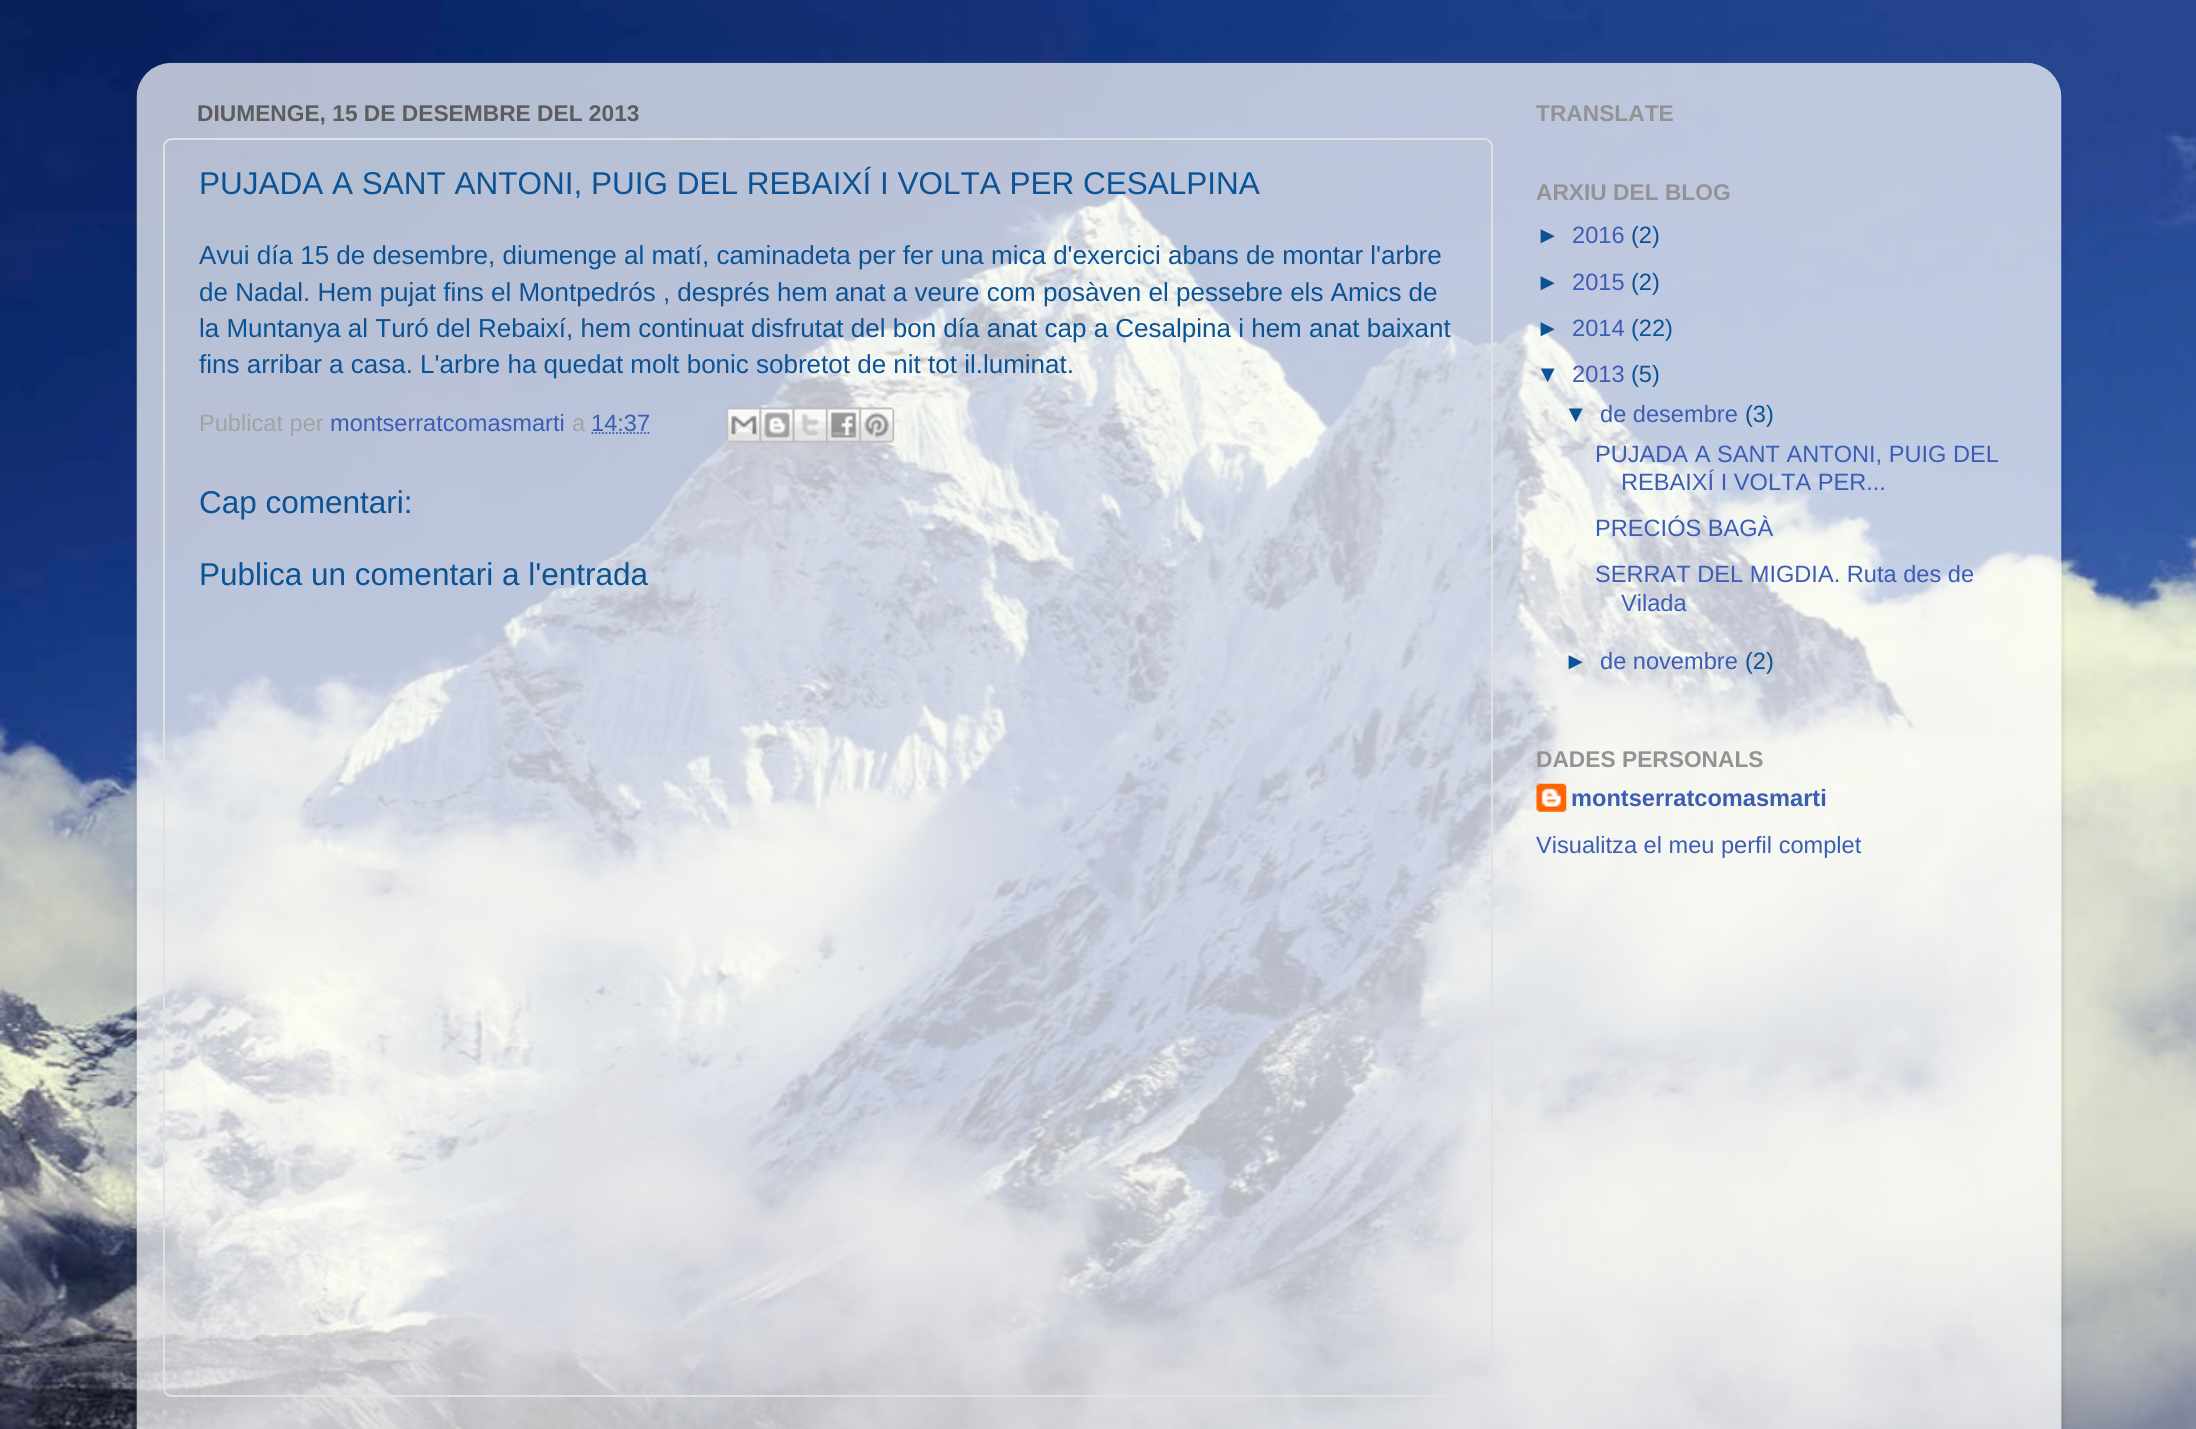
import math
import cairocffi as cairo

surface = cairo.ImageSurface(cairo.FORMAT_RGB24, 2196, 1429)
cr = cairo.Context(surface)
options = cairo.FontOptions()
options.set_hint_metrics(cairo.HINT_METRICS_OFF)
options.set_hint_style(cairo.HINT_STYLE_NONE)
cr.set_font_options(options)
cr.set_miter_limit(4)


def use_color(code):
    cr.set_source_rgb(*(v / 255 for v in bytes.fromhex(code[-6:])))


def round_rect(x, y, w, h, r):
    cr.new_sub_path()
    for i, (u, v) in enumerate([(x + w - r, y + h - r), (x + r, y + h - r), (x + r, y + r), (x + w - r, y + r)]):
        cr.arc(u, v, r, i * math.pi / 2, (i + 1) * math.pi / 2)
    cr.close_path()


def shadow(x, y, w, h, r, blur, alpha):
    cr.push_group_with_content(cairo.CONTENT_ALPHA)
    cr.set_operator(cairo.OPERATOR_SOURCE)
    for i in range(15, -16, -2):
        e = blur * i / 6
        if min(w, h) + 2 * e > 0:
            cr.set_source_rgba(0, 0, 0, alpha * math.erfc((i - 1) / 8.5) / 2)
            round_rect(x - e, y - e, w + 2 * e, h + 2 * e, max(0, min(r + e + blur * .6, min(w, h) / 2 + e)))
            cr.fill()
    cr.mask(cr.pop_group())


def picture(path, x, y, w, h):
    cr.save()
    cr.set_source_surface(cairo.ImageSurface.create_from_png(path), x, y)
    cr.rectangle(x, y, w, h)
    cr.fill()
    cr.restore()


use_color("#ffffff")
cr.paint()
picture("img1.png", 0, 0, 2196, 1429)
cr.save()
cr.set_fill_rule(cairo.FILL_RULE_EVEN_ODD)
cr.new_path()
cr.move_to(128, 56)
cr.line_to(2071, 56)
cr.line_to(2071, 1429)
cr.line_to(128, 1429)
cr.close_path()
cr.move_to(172, 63)
cr.line_to(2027, 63)
cr.curve_to(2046.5, 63, 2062, 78.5, 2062, 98)
cr.line_to(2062, 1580)
cr.line_to(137, 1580)
cr.line_to(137, 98)
cr.curve_to(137, 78.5, 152.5, 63, 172, 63)
cr.close_path()
cr.clip()
use_color("#000000")
shadow(137, 65, 1925, 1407, 35, 2.5, 0.15)
cr.restore()
picture("img2.png", 136, 62, 1926, 1367)
cr.select_font_face("Liberation Sans", cairo.FONT_SLANT_NORMAL, cairo.FONT_WEIGHT_BOLD)
cr.set_font_size(22.75)
use_color("#5d5d5d")
cr.move_to(197, 121)
cr.show_text("DIUMENGE, 15 DE DESEMBRE DEL 2013")
round_rect(164, 139, 1328, 1257, 8)
use_color("#e1e1e1")
cr.stroke()
cr.select_font_face("Liberation Sans")
cr.set_font_size(31.5)
use_color("#0b5394")
cr.move_to(199, 194)
cr.show_text("PUJADA A SANT ANTONI, PUIG DEL REBAIXÍ I VOLTA PER CESALPINA")
cr.set_font_size(26)
cr.move_to(199, 264)
cr.show_text("Avui día 15 de desembre, diumenge al matí, caminadeta per fer una mica d'exercici abans de montar l'arbre")
cr.move_to(199, 301)
cr.show_text("de Nadal. Hem pujat fins el Montpedrós , després hem anat a veure com posàven el pessebre els Amics de")
cr.move_to(199, 337)
cr.show_text("la Muntanya al Turó del Rebaixí, hem continuat disfrutat del bon día anat cap a Cesalpina i hem anat baixant")
cr.move_to(199, 373)
cr.show_text("fins arribar a casa. L'arbre ha quedat molt bonic sobretot de nit tot il.luminat.")
cr.set_font_size(23.6)
use_color("#a2a2a2")
cr.move_to(199, 431)
cr.show_text("Publicat per")
use_color("#3c5db4")
cr.move_to(330, 431)
cr.show_text("montserratcomasmarti")
use_color("#a2a2a2")
cr.move_to(572, 431)
cr.show_text("a")
use_color("#3c5db4")
cr.move_to(591, 431)
cr.show_text("14:37")
cr.new_path()
cr.move_to(591.5, 433)
cr.line_to(650.5, 433)
cr.set_line_width(1.8)
cr.set_dash([1.75, 1.75])
cr.stroke()
picture("img3.png", 726, 407, 36, 36)
picture("img4.png", 759, 407, 36, 36)
picture("img5.png", 792, 407, 36, 36)
picture("img6.png", 826, 407, 35, 36)
picture("img7.png", 859, 407, 36, 36)
cr.set_font_size(31.5)
use_color("#0b5394")
cr.move_to(199, 513)
cr.show_text("Cap comentari:")
cr.move_to(199, 585)
cr.show_text("Publica un comentari a l'entrada")
cr.select_font_face("Liberation Sans", cairo.FONT_SLANT_NORMAL, cairo.FONT_WEIGHT_BOLD)
cr.set_font_size(22.75)
use_color("#939393")
cr.move_to(1536, 121)
cr.show_text("TRANSLATE")
cr.move_to(1536, 200)
cr.show_text("ARXIU DEL BLOG")
cr.select_font_face("Liberation Sans")
cr.set_font_size(23.6)
use_color("#0b5394")
cr.move_to(1536, 243)
cr.show_text("►")
use_color("#3c5db4")
cr.move_to(1572, 243)
cr.show_text("2016")
use_color("#0b5394")
cr.move_to(1631, 243)
cr.show_text("(2)")
cr.move_to(1536, 290)
cr.show_text("►")
use_color("#3c5db4")
cr.move_to(1572, 290)
cr.show_text("2015")
use_color("#0b5394")
cr.move_to(1631, 290)
cr.show_text("(2)")
cr.move_to(1536, 336)
cr.show_text("►")
use_color("#3c5db4")
cr.move_to(1572, 336)
cr.show_text("2014")
use_color("#0b5394")
cr.move_to(1631, 336)
cr.show_text("(22)")
cr.move_to(1536, 382)
cr.show_text("▼")
use_color("#3c5db4")
cr.move_to(1572, 382)
cr.show_text("2013")
use_color("#0b5394")
cr.move_to(1631, 382)
cr.show_text("(5)")
cr.move_to(1564, 422)
cr.show_text("▼")
use_color("#3c5db4")
cr.move_to(1600, 422)
cr.show_text("de desembre")
use_color("#0b5394")
cr.move_to(1745, 422)
cr.show_text("(3)")
use_color("#3c5db4")
cr.move_to(1595, 462)
cr.show_text("PUJADA A SANT ANTONI, PUIG DEL")
cr.move_to(1621, 490)
cr.show_text("REBAIXÍ I VOLTA PER...")
cr.move_to(1595, 536)
cr.show_text("PRECIÓS BAGÀ")
cr.move_to(1595, 582)
cr.show_text("SERRAT DEL MIGDIA. Ruta des de")
cr.move_to(1621, 611)
cr.show_text("Vilada")
use_color("#0b5394")
cr.move_to(1564, 669)
cr.show_text("►")
use_color("#3c5db4")
cr.move_to(1600, 669)
cr.show_text("de novembre")
use_color("#0b5394")
cr.move_to(1745, 669)
cr.show_text("(2)")
cr.select_font_face("Liberation Sans", cairo.FONT_SLANT_NORMAL, cairo.FONT_WEIGHT_BOLD)
cr.set_font_size(22.75)
use_color("#939393")
cr.move_to(1536, 767)
cr.show_text("DADES PERSONALS")
picture("img8.png", 1536, 783, 31, 29)
cr.set_font_size(23.6)
use_color("#3c5db4")
cr.move_to(1571, 806)
cr.show_text("montserratcomasmarti")
cr.select_font_face("Liberation Sans")
cr.move_to(1536, 853)
cr.show_text("Visualitza el meu perfil complet")
surface.write_to_png("result.png")
